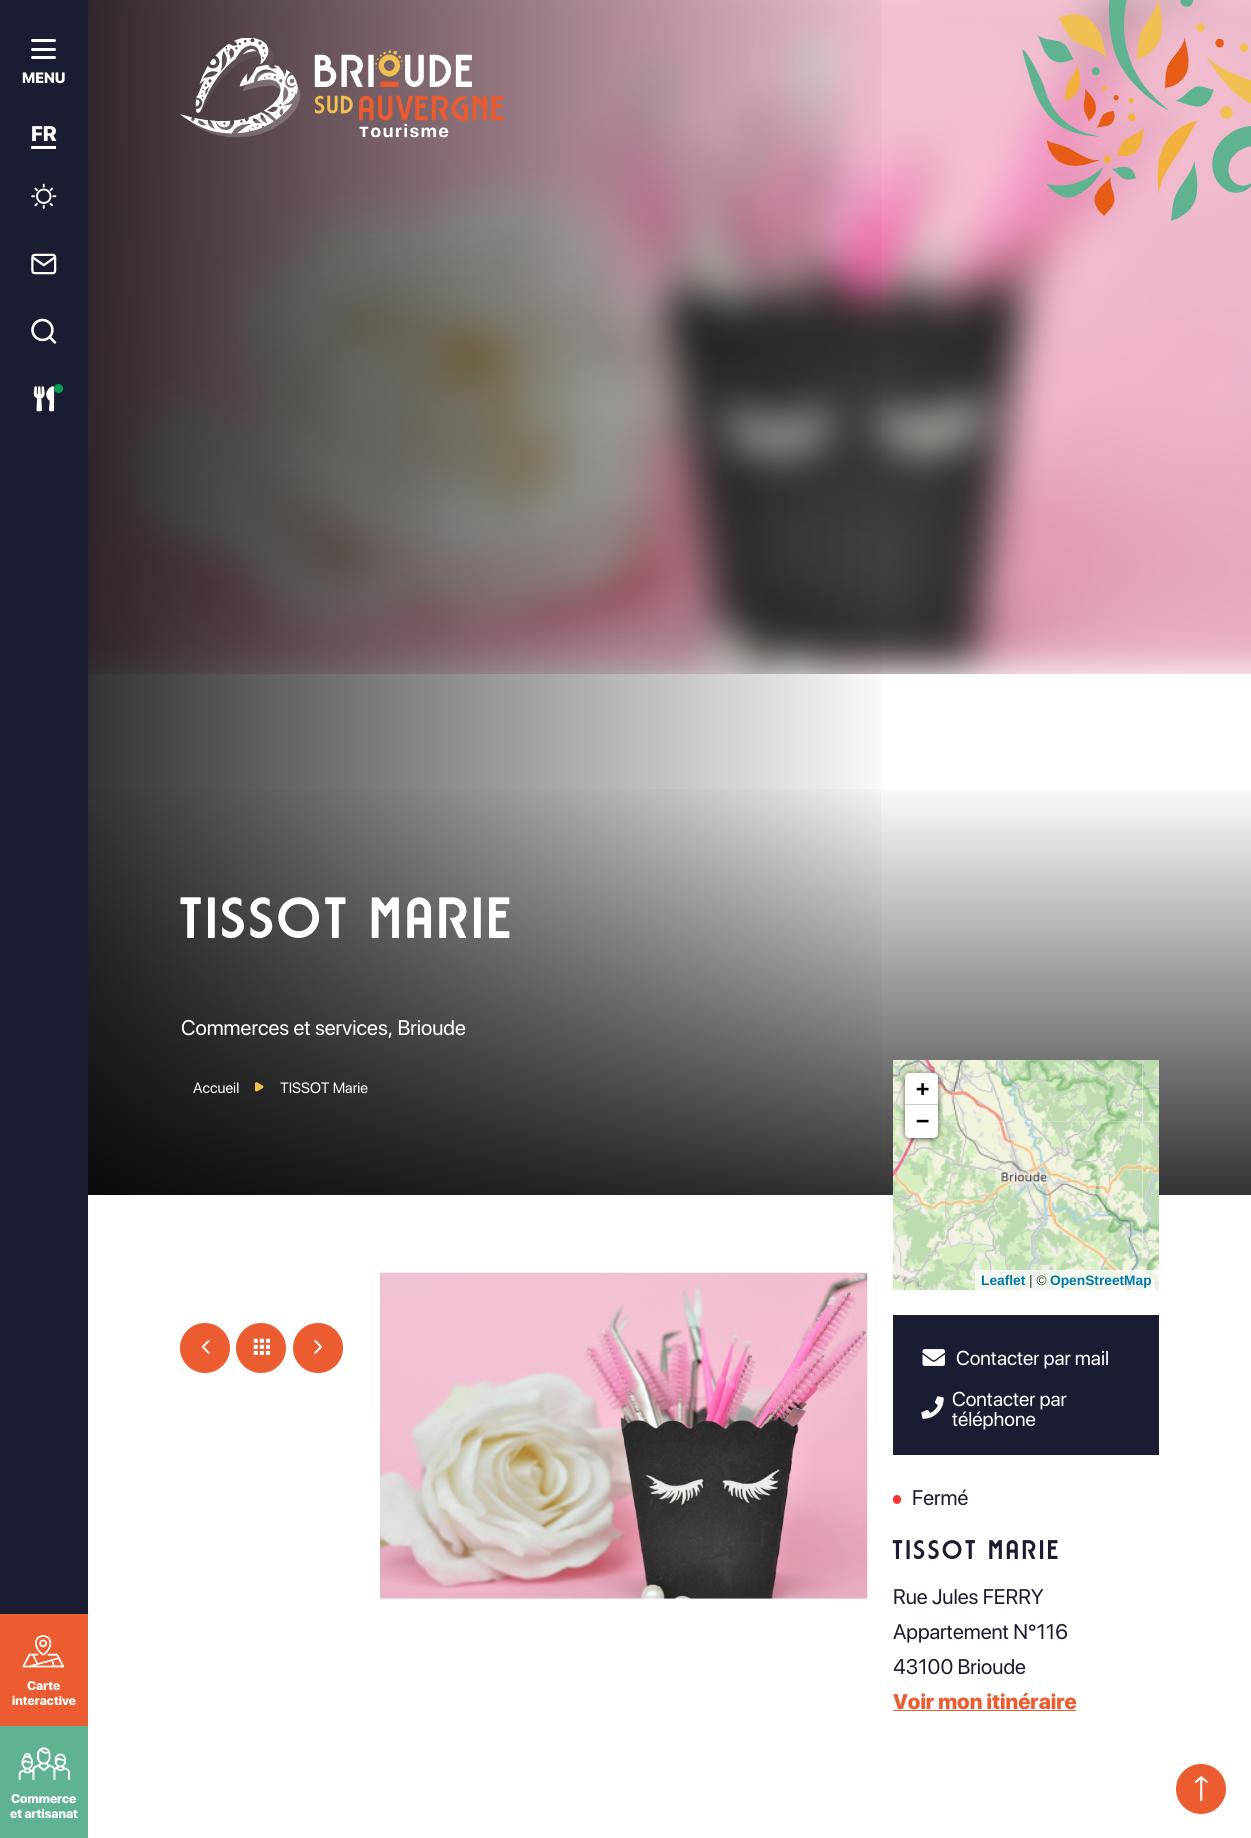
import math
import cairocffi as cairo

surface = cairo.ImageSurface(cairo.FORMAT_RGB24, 1251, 1838)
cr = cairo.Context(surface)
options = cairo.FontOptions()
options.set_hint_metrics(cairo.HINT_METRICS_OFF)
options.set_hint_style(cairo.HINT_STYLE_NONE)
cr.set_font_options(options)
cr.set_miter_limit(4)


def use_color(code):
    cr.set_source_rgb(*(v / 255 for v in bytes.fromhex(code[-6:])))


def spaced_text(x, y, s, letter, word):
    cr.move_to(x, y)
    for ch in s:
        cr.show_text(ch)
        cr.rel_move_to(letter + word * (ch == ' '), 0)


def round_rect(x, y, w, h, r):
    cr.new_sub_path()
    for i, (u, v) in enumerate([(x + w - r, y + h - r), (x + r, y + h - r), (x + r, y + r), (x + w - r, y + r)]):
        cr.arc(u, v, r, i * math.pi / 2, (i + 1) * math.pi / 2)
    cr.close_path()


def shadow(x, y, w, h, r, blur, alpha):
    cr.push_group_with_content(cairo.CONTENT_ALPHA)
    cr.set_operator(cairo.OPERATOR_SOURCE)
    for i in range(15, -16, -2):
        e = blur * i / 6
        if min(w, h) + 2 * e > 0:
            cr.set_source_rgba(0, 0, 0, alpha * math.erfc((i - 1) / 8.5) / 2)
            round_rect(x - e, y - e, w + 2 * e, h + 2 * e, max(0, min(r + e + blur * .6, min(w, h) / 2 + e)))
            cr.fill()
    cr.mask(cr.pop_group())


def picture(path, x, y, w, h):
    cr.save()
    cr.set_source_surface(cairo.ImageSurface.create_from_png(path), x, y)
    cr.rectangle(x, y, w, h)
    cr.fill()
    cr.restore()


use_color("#ffffff")
cr.paint()
use_color("#1a1d31")
cr.rectangle(0, 0, 88, 1614)
cr.fill()
use_color("#ffffff")
round_rect(31, 39, 25, 3, 1.5)
cr.fill()
round_rect(31, 48, 25, 3, 1.5)
cr.fill()
round_rect(31, 56, 25, 3, 1.5)
cr.fill()
cr.select_font_face("SF Pro Display Black")
cr.set_font_size(15)
cr.move_to(22, 83)
cr.show_text("MENU")
cr.set_font_size(21.1)
cr.move_to(31, 141)
cr.show_text("FR")
cr.rectangle(31, 146, 25, 3)
cr.fill()
picture("img1.png", 31, 183, 26, 26)
picture("img2.png", 31, 253, 26, 22)
picture("img3.png", 31, 318, 26, 26)
picture("img4.png", 33, 386, 22, 26)
use_color("#009e55")
cr.arc(58.5, 388.5, 4.5, 0, 2 * math.pi)
cr.fill()
use_color("#eb5c30")
cr.rectangle(0, 1614, 88, 112)
cr.fill()
picture("img5.png", 22, 1635, 42, 33)
cr.set_font_size(12.5)
use_color("#ffffff")
cr.move_to(27, 1690)
cr.show_text("Carte")
cr.move_to(12, 1705)
cr.show_text("interactive")
use_color("#60b391")
cr.rectangle(0, 1726, 88, 112)
cr.fill()
picture("img6.png", 18, 1747, 53, 34)
use_color("#ffffff")
cr.move_to(11, 1803)
cr.show_text("Commerce")
cr.move_to(10, 1818)
cr.show_text("et artisanat")
picture("img8.png", 88, 0, 1163, 674)
gradient = cairo.LinearGradient(87, 598, 903, 598)
gradient.add_color_stop_rgba(0, 0, 0, 0, 0.8)
gradient.add_color_stop_rgba(1, 0, 0, 0, 0)
cr.set_source(gradient)
cr.rectangle(88, 0, 793, 1195)
cr.fill()
picture("img7.png", 180, 38, 324, 100)
gradient = cairo.LinearGradient(669, 1195, 669, 778)
gradient.add_color_stop_rgba(0, 0, 0, 0, 0.8)
gradient.add_color_stop_rgba(1, 0, 0, 0, 0)
cr.set_source(gradient)
cr.rectangle(88, 789, 1163, 406)
cr.fill()
cr.select_font_face("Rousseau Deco")
cr.set_font_size(57)
use_color("#ffffff")
spaced_text(181, 938, "TISSOT Marie", 2, 0)
cr.select_font_face("SF Pro Display")
cr.set_font_size(21.1)
cr.move_to(181, 1035)
cr.show_text("Commerces et services, Brioude")
cr.set_font_size(15)
cr.move_to(193, 1093)
cr.show_text("Accueil")
picture("img9.png", 255, 1082, 9, 10)
cr.move_to(280, 1093)
cr.show_text("TISSOT Marie")
picture("img10.png", 1022, 0, 229, 222)
use_color("#eeeeee")
cr.rectangle(893, 1060, 266, 230)
cr.fill()
picture("img11.png", 893, 1060, 250, 61)
picture("img12.png", 1143, 1060, 16, 61)
picture("img13.png", 893, 1121, 250, 169)
picture("img14.png", 1143, 1121, 16, 169)
use_color("#000000")
shadow(905, 1074, 33, 65, 5, 3, 0.65)
use_color("#ffffff")
cr.new_path()
cr.move_to(910, 1073)
cr.line_to(933, 1073)
cr.curve_to(936, 1073, 938, 1075, 938, 1078)
cr.line_to(938, 1105)
cr.line_to(905, 1105)
cr.line_to(905, 1078)
cr.curve_to(905, 1075, 907, 1073, 910, 1073)
cr.close_path()
cr.fill()
use_color("#cccccc")
cr.rectangle(905, 1104, 33, 1)
cr.fill()
cr.select_font_face("DejaVu Sans Mono", cairo.FONT_SLANT_NORMAL, cairo.FONT_WEIGHT_BOLD)
cr.set_font_size(22)
use_color("#000000")
cr.move_to(916, 1096)
cr.show_text("+")
use_color("#ffffff")
cr.new_path()
cr.move_to(905, 1105)
cr.line_to(938, 1105)
cr.line_to(938, 1133)
cr.curve_to(938, 1136, 936, 1138, 933, 1138)
cr.line_to(910, 1138)
cr.curve_to(907, 1138, 905, 1136, 905, 1133)
cr.close_path()
cr.fill()
use_color("#000000")
cr.move_to(916, 1128)
cr.show_text("−")
cr.set_source_rgba(1, 1, 1, 0.7)
cr.rectangle(975, 1270, 184, 20)
cr.fill()
cr.select_font_face("Liberation Sans", cairo.FONT_SLANT_NORMAL, cairo.FONT_WEIGHT_BOLD)
cr.set_font_size(13.75)
use_color("#0078a8")
cr.move_to(981, 1285)
cr.show_text("Leaflet")
cr.select_font_face("Liberation Sans")
use_color("#333333")
cr.move_to(1029, 1285)
cr.show_text("| ©")
cr.select_font_face("Liberation Sans", cairo.FONT_SLANT_NORMAL, cairo.FONT_WEIGHT_BOLD)
use_color("#0078a8")
cr.move_to(1050, 1285)
cr.show_text("OpenStreetMap")
use_color("#eb5c30")
cr.new_path()
cr.arc(205, 1348, 25, 0, 2 * math.pi)
cr.fill()
picture("img15.png", 201, 1340, 9, 14)
cr.arc(261, 1348, 25, 0, 2 * math.pi)
cr.fill()
picture("img16.png", 253, 1338, 17, 17)
cr.arc(318, 1348, 25, 0, 2 * math.pi)
cr.fill()
picture("img17.png", 314, 1340, 8, 14)
picture("img18.png", 380, 1272, 488, 327)
use_color("#1a1d31")
cr.rectangle(893, 1315, 266, 140)
cr.fill()
picture("img19.png", 922, 1349, 23, 17)
cr.select_font_face("SF Pro Display")
cr.set_font_size(20)
use_color("#ffffff")
cr.move_to(956, 1365)
cr.show_text("Contacter par mail")
picture("img20.png", 921, 1396, 23, 23)
cr.move_to(952, 1406)
cr.show_text("Contacter par")
cr.move_to(952, 1426)
cr.show_text("téléphone")
use_color("#ff3333")
round_rect(893, 1495, 8, 9, 4)
cr.fill()
cr.set_font_size(21.1)
use_color("#1a1d31")
cr.move_to(912, 1505)
cr.show_text("Fermé")
cr.select_font_face("Rousseau Deco")
cr.set_font_size(26.5)
spaced_text(893, 1559, "TISSOT Marie", 2, 0)
cr.select_font_face("SF Pro Display")
cr.set_font_size(21.1)
cr.move_to(893, 1604)
cr.show_text("Rue Jules FERRY")
cr.move_to(893, 1639)
cr.show_text("Appartement N°116")
cr.move_to(893, 1674)
cr.show_text("43100 Brioude")
cr.select_font_face("SF Pro Display Black")
use_color("#eb5c30")
cr.move_to(893, 1709)
cr.show_text("Voir mon itinéraire")
cr.rectangle(893, 1710, 183, 1)
cr.fill()
cr.arc(1201, 1789, 25, 0, 2 * math.pi)
cr.fill()
picture("img21.png", 1194, 1776, 14, 26)
surface.write_to_png("result.png")
